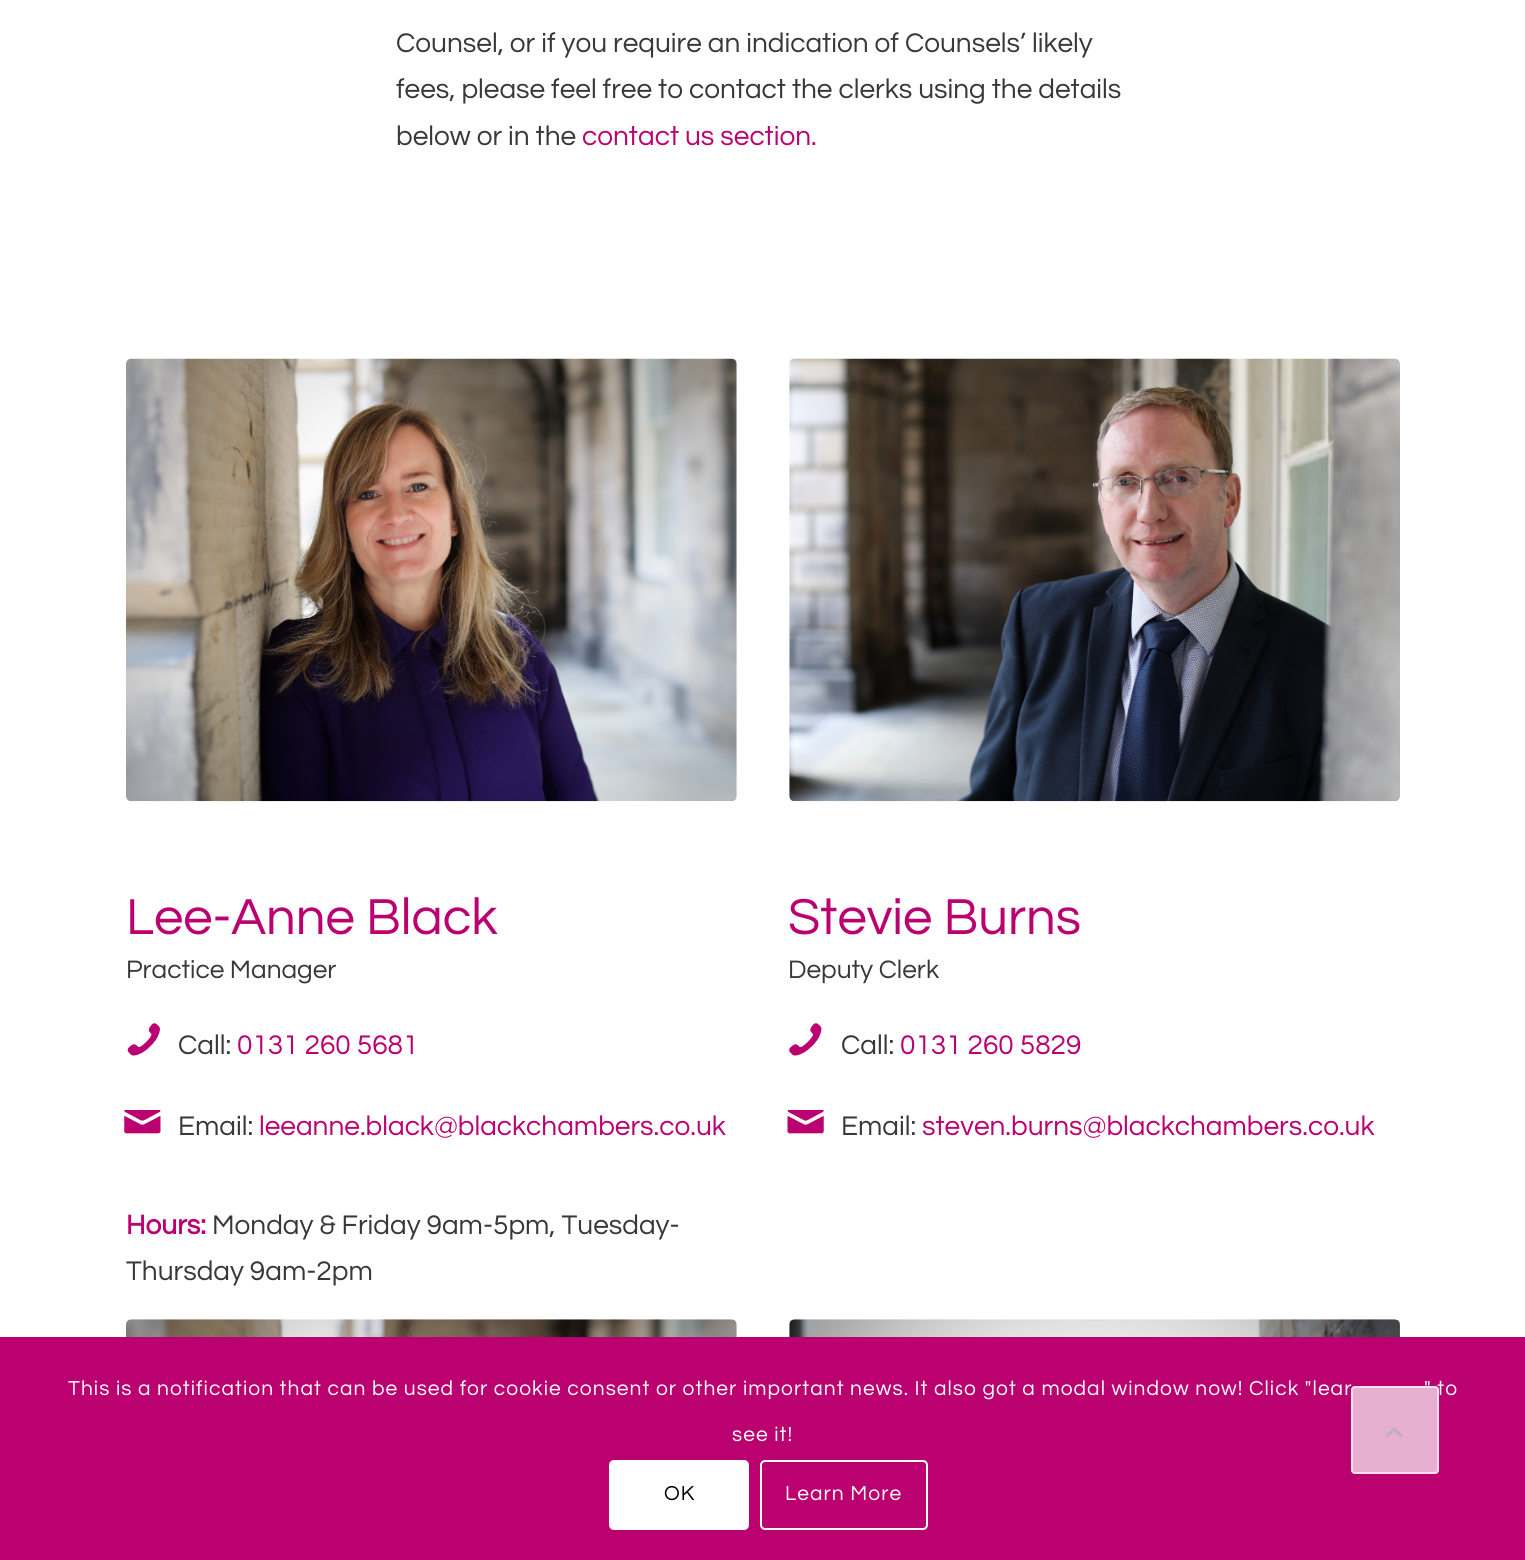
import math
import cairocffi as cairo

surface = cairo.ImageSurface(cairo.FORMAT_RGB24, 1525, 1560)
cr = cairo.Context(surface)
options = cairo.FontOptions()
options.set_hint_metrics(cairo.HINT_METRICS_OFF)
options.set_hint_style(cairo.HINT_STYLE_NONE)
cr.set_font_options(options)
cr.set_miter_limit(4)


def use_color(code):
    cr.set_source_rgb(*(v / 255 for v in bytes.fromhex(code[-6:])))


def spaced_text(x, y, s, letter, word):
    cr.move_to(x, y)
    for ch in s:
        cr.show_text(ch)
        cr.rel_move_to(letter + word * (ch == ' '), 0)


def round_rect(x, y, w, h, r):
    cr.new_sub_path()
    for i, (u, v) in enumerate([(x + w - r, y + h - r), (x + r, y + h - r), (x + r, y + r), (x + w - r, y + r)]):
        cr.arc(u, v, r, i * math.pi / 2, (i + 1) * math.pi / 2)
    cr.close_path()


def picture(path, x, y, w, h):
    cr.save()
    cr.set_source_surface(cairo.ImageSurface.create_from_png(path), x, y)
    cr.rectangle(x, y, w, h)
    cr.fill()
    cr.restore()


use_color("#ffffff")
cr.paint()
cr.select_font_face("Questrial")
cr.set_font_size(28)
use_color("#383838")
cr.move_to(396, 52)
cr.show_text("Counsel, or if you require an indication of Counsels’ likely")
cr.move_to(396, 98)
cr.show_text("fees, please feel free to contact the clerks using the details")
cr.move_to(396, 145)
cr.show_text("below or in the")
use_color("#bb0070")
cr.move_to(582, 145)
cr.show_text("contact us section.")
picture("img1.png", 126, 358, 611, 444)
cr.set_font_size(52.5)
cr.move_to(126, 934)
cr.show_text("Lee-Anne Black")
cr.set_font_size(26.25)
use_color("#383838")
cr.move_to(126, 978)
cr.show_text("Practice Manager")
picture("img2.png", 127, 1023, 33, 33)
cr.set_font_size(28)
cr.move_to(178, 1054)
cr.show_text("Call:")
use_color("#bb0070")
cr.move_to(237, 1054)
cr.show_text("0131 260 5681")
picture("img3.png", 124, 1110, 37, 24)
use_color("#383838")
cr.move_to(178, 1135)
cr.show_text("Email:")
use_color("#bb0070")
cr.move_to(259, 1135)
cr.show_text("leeanne.black@blackchambers.co.uk")
cr.select_font_face("Questrial", cairo.FONT_SLANT_NORMAL, cairo.FONT_WEIGHT_BOLD)
cr.move_to(126, 1234)
cr.show_text("Hours:")
cr.select_font_face("Questrial")
use_color("#383838")
cr.move_to(212, 1234)
cr.show_text("Monday & Friday 9am-5pm, Tuesday-")
cr.move_to(126, 1280)
cr.show_text("Thursday 9am-2pm")
picture("img4.png", 789, 358, 611, 444)
cr.set_font_size(52.5)
use_color("#bb0070")
cr.move_to(788, 934)
cr.show_text("Stevie Burns")
cr.set_font_size(26.25)
use_color("#383838")
cr.move_to(788, 978)
cr.show_text("Deputy Clerk")
picture("img5.png", 789, 1023, 33, 33)
cr.set_font_size(28)
cr.move_to(841, 1054)
cr.show_text("Call:")
use_color("#bb0070")
cr.move_to(900, 1054)
cr.show_text("0131 260 5829")
picture("img6.png", 787, 1110, 37, 24)
use_color("#383838")
cr.move_to(841, 1135)
cr.show_text("Email:")
use_color("#bb0070")
cr.move_to(922, 1135)
cr.show_text("steven.burns@blackchambers.co.uk")
picture("img7.png", 126, 1319, 611, 18)
picture("img8.png", 789, 1319, 611, 18)
cr.rectangle(0, 1337, 1525, 223)
cr.fill()
cr.set_font_size(21)
use_color("#ffffff")
spaced_text(68, 1395, "This is a notification that can be used for cookie consent or other important news. It also got a modal window now! Click \"lear", 1.05, 0)
spaced_text(1424, 1395, "\" to", 1.05, 0)
spaced_text(732, 1441, "see it!", 1.05, 0)
round_rect(609, 1460, 140, 70, 5)
cr.fill()
use_color("#000000")
spaced_text(664, 1500, "OK", 1.05, 0)
round_rect(761, 1461, 166, 68, 4)
use_color("#ffffff")
cr.stroke()
spaced_text(785, 1500, "Learn More", 1.05, 0)
cr.set_source_rgba(0.973, 0.973, 0.973, 0.7)
round_rect(1351, 1386, 88, 88, 4)
cr.fill()
round_rect(1352, 1387, 86, 86, 3)
cr.stroke()
picture("img9.png", 1386, 1427, 17, 10)
surface.write_to_png("result.png")
